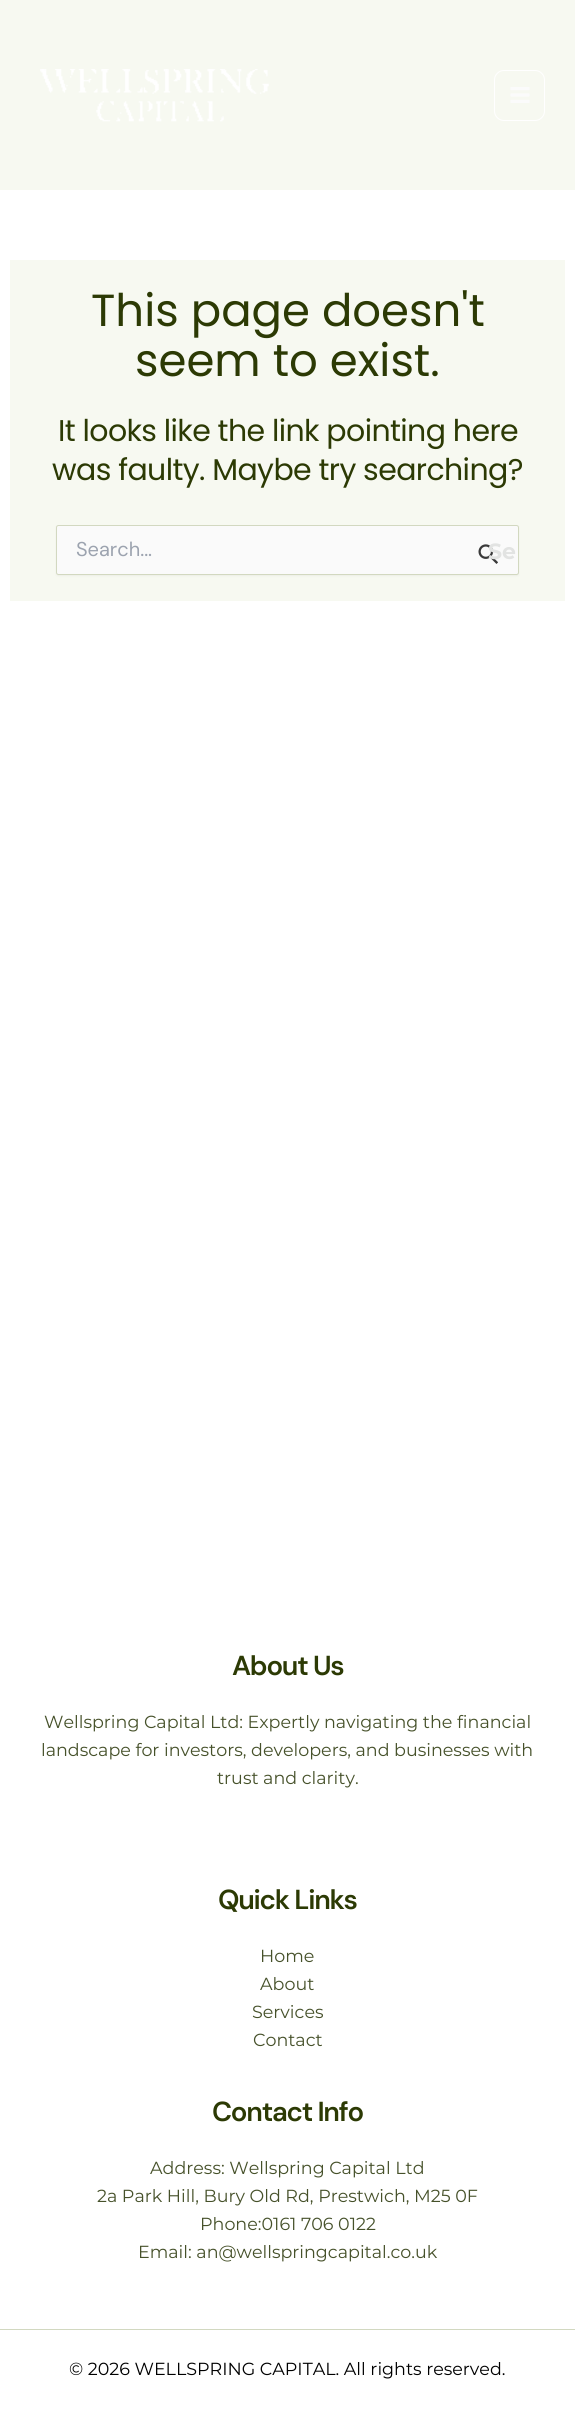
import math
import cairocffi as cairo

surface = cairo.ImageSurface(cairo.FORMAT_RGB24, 575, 2420)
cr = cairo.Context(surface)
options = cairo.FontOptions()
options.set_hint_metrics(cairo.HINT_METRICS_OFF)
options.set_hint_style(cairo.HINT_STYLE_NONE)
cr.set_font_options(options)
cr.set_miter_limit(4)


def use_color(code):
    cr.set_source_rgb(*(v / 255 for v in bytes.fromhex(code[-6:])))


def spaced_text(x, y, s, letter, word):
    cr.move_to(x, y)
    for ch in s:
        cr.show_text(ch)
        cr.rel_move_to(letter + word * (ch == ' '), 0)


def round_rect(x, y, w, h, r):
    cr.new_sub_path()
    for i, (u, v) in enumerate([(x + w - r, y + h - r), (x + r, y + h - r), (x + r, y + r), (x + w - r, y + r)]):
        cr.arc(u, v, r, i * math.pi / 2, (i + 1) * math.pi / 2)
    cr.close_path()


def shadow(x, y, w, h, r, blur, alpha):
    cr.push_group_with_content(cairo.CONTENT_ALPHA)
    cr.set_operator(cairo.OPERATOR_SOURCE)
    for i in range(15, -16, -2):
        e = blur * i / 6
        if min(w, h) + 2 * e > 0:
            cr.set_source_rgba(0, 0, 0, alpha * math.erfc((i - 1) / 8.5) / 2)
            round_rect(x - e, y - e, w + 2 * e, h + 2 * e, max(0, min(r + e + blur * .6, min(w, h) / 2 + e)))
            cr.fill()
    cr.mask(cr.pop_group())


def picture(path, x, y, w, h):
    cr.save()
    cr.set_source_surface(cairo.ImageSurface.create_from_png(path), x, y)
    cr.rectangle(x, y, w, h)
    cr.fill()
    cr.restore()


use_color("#ffffff")
cr.paint()
use_color("#f7f9f1")
cr.rectangle(0, 0, 575, 190)
cr.fill()
picture("img1.png", 40, 69, 229, 53)
round_rect(494.5, 70.5, 50, 50, 9.5)
use_color("#ffffff")
cr.set_line_width(1)
cr.stroke()
picture("img2.png", 510, 87, 20, 16)
use_color("#f7f9f1")
cr.rectangle(10, 260, 555, 341)
cr.fill()
cr.select_font_face("Poppins")
cr.set_font_size(45)
use_color("#2c3a04")
cr.move_to(91, 326)
cr.show_text("This page doesn't")
cr.move_to(135, 376)
cr.show_text("seem to exist.")
cr.set_font_size(30)
spaced_text(58, 441, "It looks like the link pointing here", -0.6, 0)
spaced_text(52, 480, "was faulty. Maybe try searching?", -0.6, 0)
use_color("#000000")
shadow(56, 526, 463, 50, 2.5, 1, 0.05)
use_color("#fafafa")
round_rect(56.5, 525.5, 462, 49, 2)
cr.fill_preserve()
use_color("#d2d8c0")
cr.stroke()
cr.select_font_face("DM Sans")
cr.set_font_size(20)
use_color("#9ca3af")
cr.move_to(76, 556)
cr.show_text("Search...")
picture("img3.png", 478, 544, 20, 20)
cr.select_font_face("Montserrat", cairo.FONT_SLANT_NORMAL, cairo.FONT_WEIGHT_BOLD)
cr.set_font_size(22)
use_color("#e2e3e2")
cr.move_to(488, 559)
cr.show_text("Se")
cr.select_font_face("DM Sans SemiBold")
cr.set_font_size(27.5)
use_color("#2c3a04")
spaced_text(232, 1675, "About Us", -1.25, 0)
cr.select_font_face("Montserrat")
cr.set_font_size(17.5)
use_color("#46512a")
cr.move_to(44, 1728)
cr.show_text("Wellspring Capital Ltd: Expertly navigating the financial")
cr.move_to(41, 1756)
cr.show_text("landscape for investors, developers, and businesses with")
cr.move_to(217, 1784)
cr.show_text("trust and clarity.")
cr.select_font_face("DM Sans SemiBold")
cr.set_font_size(27.5)
use_color("#2c3a04")
spaced_text(218, 1909, "Quick Links", -1.25, 0)
cr.select_font_face("Montserrat")
cr.set_font_size(17.5)
use_color("#46512a")
cr.move_to(260, 1962)
cr.show_text("Home")
cr.move_to(260, 1990)
cr.show_text("About")
cr.move_to(252, 2018)
cr.show_text("Services")
cr.move_to(253, 2046)
cr.show_text("Contact")
cr.select_font_face("DM Sans SemiBold")
cr.set_font_size(27.5)
use_color("#2c3a04")
spaced_text(212, 2121, "Contact Info", -1.25, 0)
cr.select_font_face("Montserrat")
cr.set_font_size(17.5)
use_color("#46512a")
cr.move_to(150, 2174)
cr.show_text("Address: Wellspring Capital Ltd")
cr.move_to(97, 2202)
cr.show_text("2a Park Hill, Bury Old Rd, Prestwich, M25 0F")
cr.move_to(200, 2230)
cr.show_text("Phone:0161 706 0122")
cr.move_to(138, 2258)
cr.show_text("Email: an@wellspringcapital.co.uk")
use_color("#d2d8c0")
cr.rectangle(0, 2329, 575, 1)
cr.fill()
use_color("#000000")
cr.move_to(69, 2375)
cr.show_text("© 2026 WELLSPRING CAPITAL. All rights reserved.")
surface.write_to_png("result.png")
